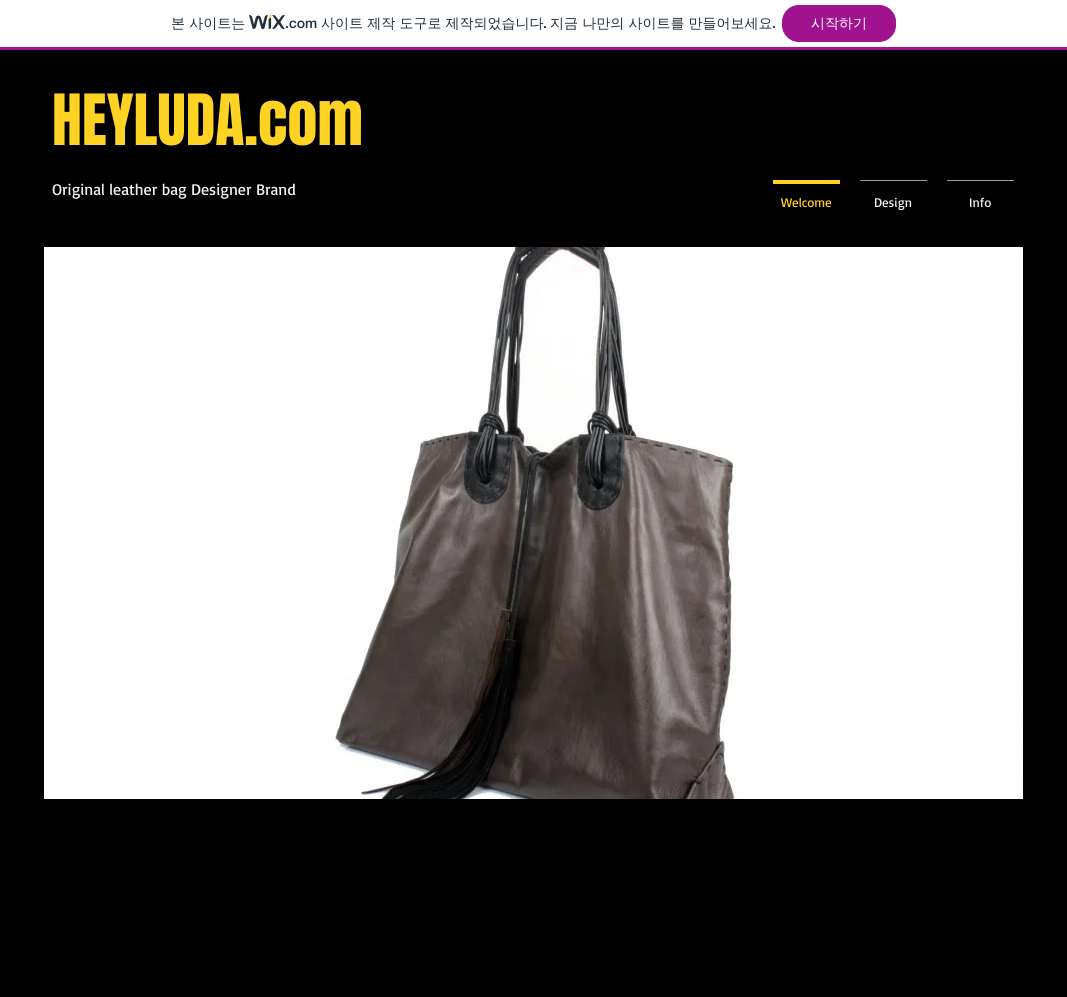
import math
import cairocffi as cairo

surface = cairo.ImageSurface(cairo.FORMAT_RGB24, 1067, 997)
cr = cairo.Context(surface)
options = cairo.FontOptions()
options.set_hint_metrics(cairo.HINT_METRICS_OFF)
options.set_hint_style(cairo.HINT_STYLE_NONE)
cr.set_font_options(options)
cr.set_miter_limit(4)


def use_color(code):
    cr.set_source_rgb(*(v / 255 for v in bytes.fromhex(code[-6:])))


def round_rect(x, y, w, h, r):
    cr.new_sub_path()
    for i, (u, v) in enumerate([(x + w - r, y + h - r), (x + r, y + h - r), (x + r, y + r), (x + w - r, y + r)]):
        cr.arc(u, v, r, i * math.pi / 2, (i + 1) * math.pi / 2)
    cr.close_path()


def picture(path, x, y, w, h):
    cr.save()
    cr.set_source_surface(cairo.ImageSurface.create_from_png(path), x, y)
    cr.rectangle(x, y, w, h)
    cr.fill()
    cr.restore()


use_color("#ffffff")
cr.paint()
use_color("#a0138e")
cr.rectangle(0, 47, 1067, 3)
cr.fill()
cr.select_font_face("WenQuanYi Zen Hei Medium")
cr.set_font_size(14)
use_color("#20303c")
cr.move_to(171, 28)
cr.show_text("본 사이트는")
picture("img1.png", 249, 15, 36, 15)
cr.select_font_face("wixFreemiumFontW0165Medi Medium")
cr.move_to(285, 28)
cr.show_text(".com")
cr.select_font_face("WenQuanYi Zen Hei Medium")
cr.move_to(321, 28)
cr.show_text("사이트 제작 도구로 제작되었습니다")
cr.select_font_face("wixFreemiumFontW0165Medi Medium")
cr.move_to(543, 28)
cr.show_text(".")
cr.select_font_face("WenQuanYi Zen Hei Medium")
cr.move_to(550, 28)
cr.show_text("지금 나만의 사이트를 만들어보세요")
cr.select_font_face("wixFreemiumFontW0165Medi Medium")
cr.move_to(772, 28)
cr.show_text(".")
use_color("#a0138e")
round_rect(782.5, 5.5, 113, 36, 16.5)
cr.fill_preserve()
cr.set_line_width(1)
cr.stroke()
cr.select_font_face("WenQuanYi Zen Hei Medium")
use_color("#ffffff")
cr.move_to(811, 28)
cr.show_text("시작하기")
use_color("#000000")
cr.rectangle(0, 50, 1067, 947)
cr.fill()
cr.select_font_face("Anton")
cr.set_font_size(60)
use_color("#ffd323")
cr.move_to(52, 145)
cr.show_text("HEYLUDA.com")
cr.select_font_face("Basic")
cr.set_font_size(16)
use_color("#f2f2f2")
cr.move_to(52, 195)
cr.show_text("Original leather bag Designer Brand")
use_color("#ffd323")
cr.rectangle(773, 180, 67, 4)
cr.fill()
cr.set_font_size(13)
cr.move_to(781, 207)
cr.show_text("Welcome")
use_color("#999999")
cr.rectangle(860, 180, 67, 1)
cr.fill()
use_color("#f2f2f2")
cr.move_to(874, 207)
cr.show_text("Design")
use_color("#999999")
cr.rectangle(947, 180, 67, 1)
cr.fill()
use_color("#f2f2f2")
cr.move_to(969, 207)
cr.show_text("Info")
picture("img2.png", 44, 247, 980, 552)
surface.write_to_png("result.png")
